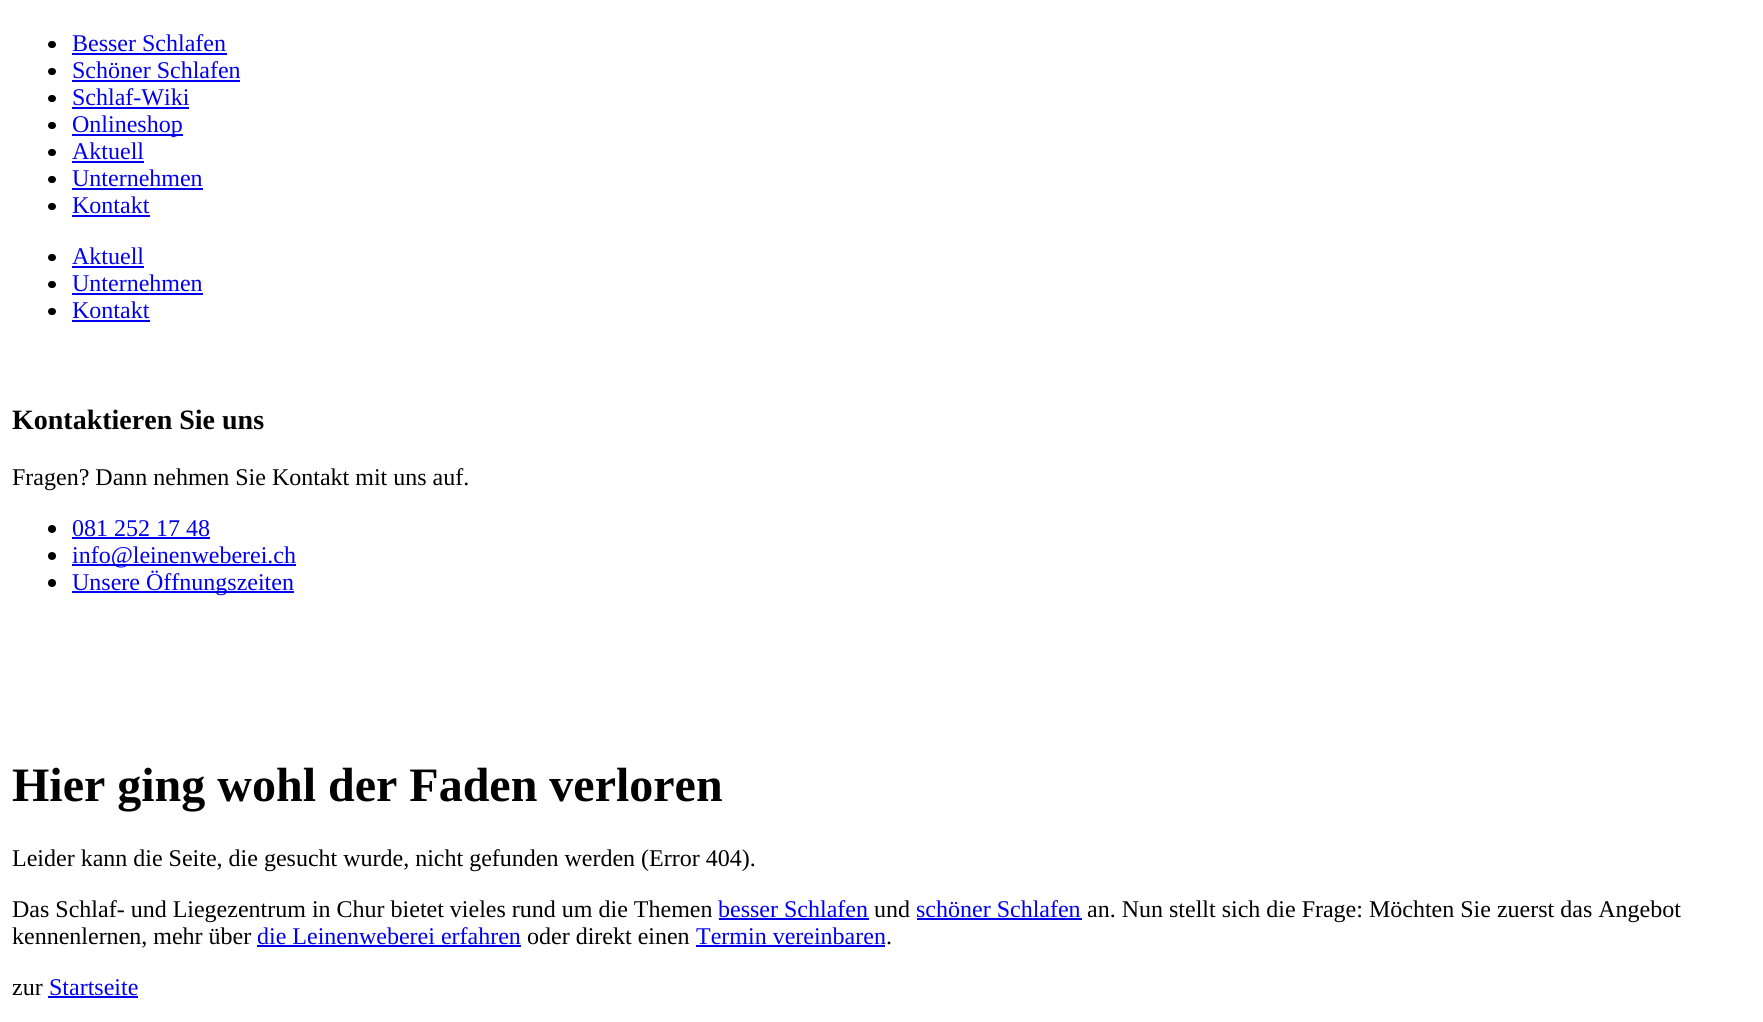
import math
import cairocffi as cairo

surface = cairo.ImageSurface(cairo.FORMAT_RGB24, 1763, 1022)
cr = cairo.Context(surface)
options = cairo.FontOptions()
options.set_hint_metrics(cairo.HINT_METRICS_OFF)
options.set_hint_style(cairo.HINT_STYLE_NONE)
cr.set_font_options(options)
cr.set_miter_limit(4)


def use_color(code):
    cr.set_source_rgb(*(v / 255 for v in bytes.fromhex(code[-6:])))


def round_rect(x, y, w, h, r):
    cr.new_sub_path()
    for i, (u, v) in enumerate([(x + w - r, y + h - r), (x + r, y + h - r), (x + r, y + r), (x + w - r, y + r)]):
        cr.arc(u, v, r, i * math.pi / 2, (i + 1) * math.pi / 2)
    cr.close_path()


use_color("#ffffff")
cr.paint()
use_color("#000000")
round_rect(48, 41, 8, 7, 3.5)
cr.fill()
cr.select_font_face("Liberation Serif")
cr.set_font_size(24)
use_color("#0000ee")
cr.move_to(72, 51)
cr.show_text("Besser Schlafen")
cr.rectangle(72, 53, 155, 2)
cr.fill()
use_color("#000000")
round_rect(48, 68, 8, 7, 3.5)
cr.fill()
use_color("#0000ee")
cr.move_to(72, 78)
cr.show_text("Schöner Schlafen")
cr.rectangle(72, 80, 168, 2)
cr.fill()
use_color("#000000")
round_rect(48, 95, 8, 7, 3.5)
cr.fill()
use_color("#0000ee")
cr.move_to(72, 105)
cr.show_text("Schlaf-Wiki")
cr.rectangle(72, 107, 117, 2)
cr.fill()
use_color("#000000")
round_rect(48, 122, 8, 7, 3.5)
cr.fill()
use_color("#0000ee")
cr.rectangle(72, 134, 111, 2)
cr.fill()
cr.move_to(72, 132)
cr.show_text("Onlineshop")
use_color("#000000")
round_rect(48, 149, 8, 7, 3.5)
cr.fill()
use_color("#0000ee")
cr.move_to(72, 159)
cr.show_text("Aktuell")
cr.rectangle(72, 161, 72, 2)
cr.fill()
use_color("#000000")
round_rect(48, 176, 8, 7, 3.5)
cr.fill()
use_color("#0000ee")
cr.move_to(72, 186)
cr.show_text("Unternehmen")
cr.rectangle(72, 188, 131, 2)
cr.fill()
use_color("#000000")
round_rect(48, 203, 8, 7, 3.5)
cr.fill()
use_color("#0000ee")
cr.move_to(72, 213)
cr.show_text("Kontakt")
cr.rectangle(72, 215, 78, 2)
cr.fill()
use_color("#000000")
round_rect(48, 254, 8, 7, 3.5)
cr.fill()
use_color("#0000ee")
cr.move_to(72, 264)
cr.show_text("Aktuell")
cr.rectangle(72, 266, 72, 2)
cr.fill()
use_color("#000000")
round_rect(48, 281, 8, 7, 3.5)
cr.fill()
use_color("#0000ee")
cr.move_to(72, 291)
cr.show_text("Unternehmen")
cr.rectangle(72, 293, 131, 2)
cr.fill()
use_color("#000000")
round_rect(48, 308, 8, 7, 3.5)
cr.fill()
use_color("#0000ee")
cr.move_to(72, 318)
cr.show_text("Kontakt")
cr.rectangle(72, 320, 78, 2)
cr.fill()
cr.select_font_face("Liberation Serif", cairo.FONT_SLANT_NORMAL, cairo.FONT_WEIGHT_BOLD)
cr.set_font_size(28)
use_color("#000000")
cr.move_to(12, 429)
cr.show_text("Kontaktieren Sie uns")
cr.select_font_face("Liberation Serif")
cr.set_font_size(24)
cr.move_to(12, 485)
cr.show_text("Fragen? Dann nehmen Sie Kontakt mit uns auf.")
cr.new_path()
cr.arc(52, 529, 4, 0, 2 * math.pi)
cr.fill()
use_color("#0000ee")
cr.move_to(72, 536)
cr.show_text("081 252 17 48")
cr.rectangle(72, 537, 138, 2)
cr.fill()
use_color("#000000")
cr.arc(52, 556, 4, 0, 2 * math.pi)
cr.fill()
use_color("#0000ee")
cr.rectangle(72, 564, 224, 2)
cr.fill()
cr.move_to(72, 563)
cr.show_text("info@leinenweberei.ch")
use_color("#000000")
cr.new_path()
cr.arc(52, 583, 4, 0, 2 * math.pi)
cr.fill()
use_color("#0000ee")
cr.rectangle(72, 591, 222, 2)
cr.fill()
cr.move_to(72, 590)
cr.show_text("Unsere Öffnungszeiten")
cr.select_font_face("Liberation Serif", cairo.FONT_SLANT_NORMAL, cairo.FONT_WEIGHT_BOLD)
cr.set_font_size(48)
use_color("#000000")
cr.move_to(12, 801)
cr.show_text("Hier ging wohl der Faden verloren")
cr.select_font_face("Liberation Serif")
cr.set_font_size(24)
cr.move_to(12, 866)
cr.show_text("Leider kann die Seite, die gesucht wurde, nicht gefunden werden (Error 404).")
cr.move_to(12, 917)
cr.show_text("Das Schlaf- und Liegezentrum in Chur bietet vieles rund um die Themen")
use_color("#0000ee")
cr.move_to(718, 917)
cr.show_text("besser Schlafen")
cr.rectangle(719, 918, 150, 2)
cr.fill()
use_color("#000000")
cr.move_to(874, 917)
cr.show_text("und")
use_color("#0000ee")
cr.move_to(916, 917)
cr.show_text("schöner Schlafen")
cr.rectangle(917, 918, 165, 2)
cr.fill()
use_color("#000000")
cr.move_to(1087, 917)
cr.show_text("an. Nun stellt sich die Frage: Möchten Sie zuerst das Angebot")
cr.move_to(12, 944)
cr.show_text("kennenlernen, mehr über")
use_color("#0000ee")
cr.move_to(257, 944)
cr.show_text("die Leinenweberei erfahren")
cr.rectangle(257, 945, 264, 2)
cr.fill()
use_color("#000000")
cr.move_to(527, 944)
cr.show_text("oder direkt einen")
use_color("#0000ee")
cr.move_to(696, 944)
cr.show_text("Termin vereinbaren")
cr.rectangle(696, 945, 189, 2)
cr.fill()
use_color("#000000")
cr.move_to(886, 944)
cr.show_text(".")
cr.move_to(12, 995)
cr.show_text("zur")
use_color("#0000ee")
cr.move_to(49, 995)
cr.show_text("Startseite")
cr.rectangle(48, 996, 90, 2)
cr.fill()
surface.write_to_png("result.png")
